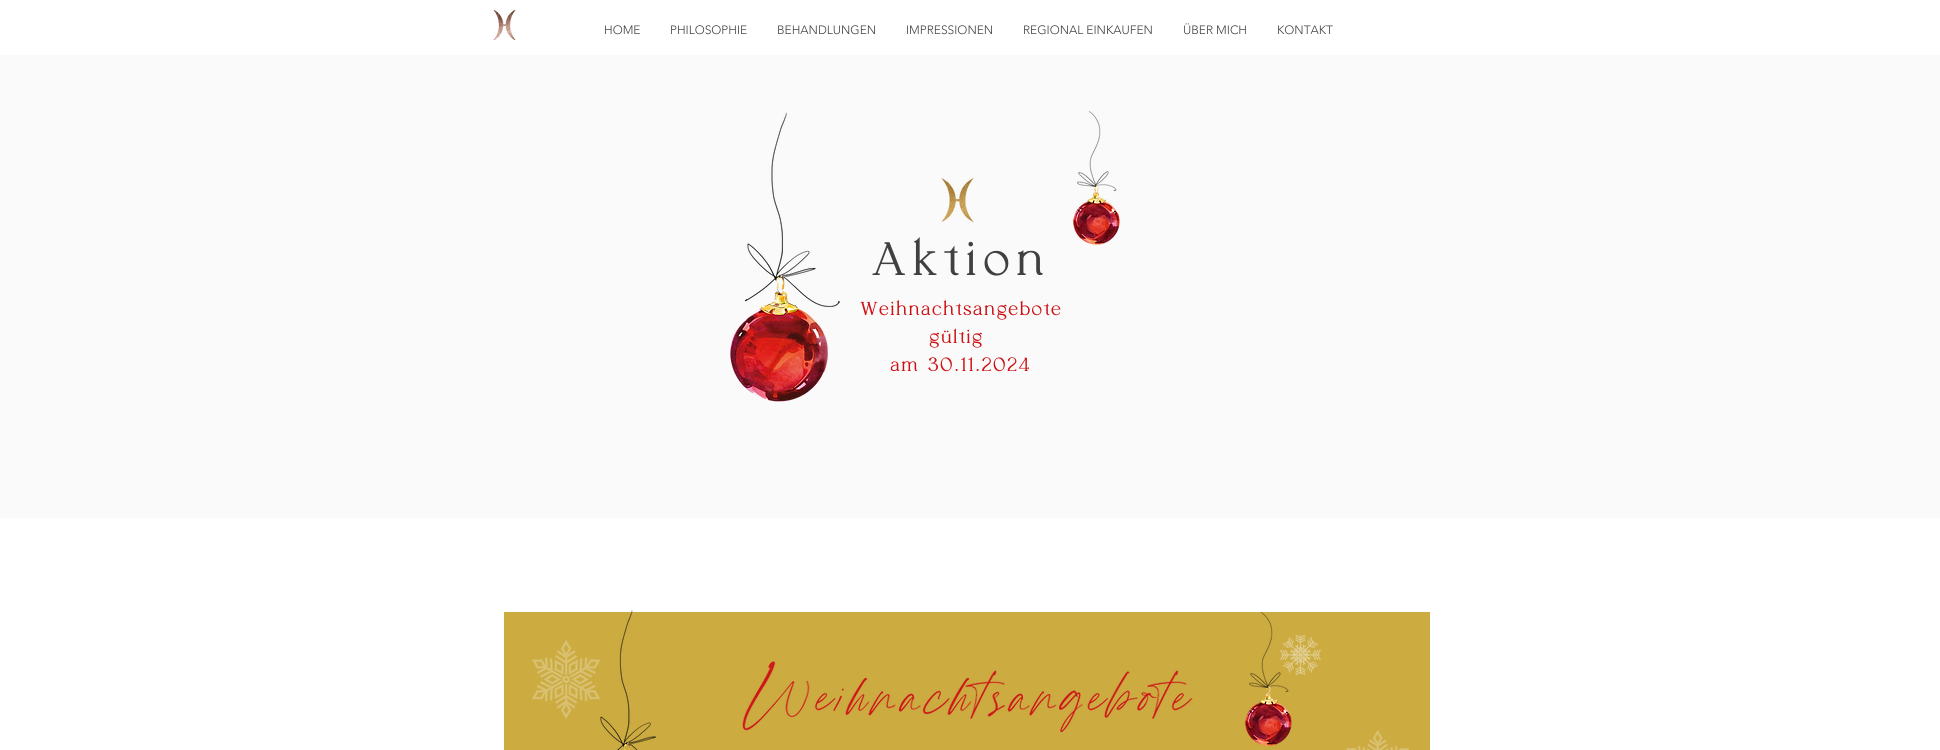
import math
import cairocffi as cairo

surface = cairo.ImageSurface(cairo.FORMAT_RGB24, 1940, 750)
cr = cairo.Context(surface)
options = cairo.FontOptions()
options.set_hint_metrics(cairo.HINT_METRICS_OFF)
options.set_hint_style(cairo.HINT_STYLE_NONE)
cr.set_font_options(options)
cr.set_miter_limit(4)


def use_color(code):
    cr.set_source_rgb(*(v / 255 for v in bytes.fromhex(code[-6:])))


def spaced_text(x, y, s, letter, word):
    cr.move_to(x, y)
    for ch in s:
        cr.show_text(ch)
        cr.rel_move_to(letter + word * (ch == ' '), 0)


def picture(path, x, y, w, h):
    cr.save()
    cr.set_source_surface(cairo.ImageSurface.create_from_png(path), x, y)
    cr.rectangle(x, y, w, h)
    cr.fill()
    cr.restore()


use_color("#ffffff")
cr.paint()
picture("img1.png", 493, 10, 23, 30)
cr.select_font_face("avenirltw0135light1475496 Light")
cr.set_font_size(12)
use_color("#404041")
cr.move_to(604, 34)
cr.show_text("HOME")
cr.move_to(670, 34)
cr.show_text("PHILOSOPHIE")
cr.move_to(777, 34)
cr.show_text("BEHANDLUNGEN")
cr.move_to(906, 34)
cr.show_text("IMPRESSIONEN")
cr.move_to(1023, 34)
cr.show_text("REGIONAL EINKAUFEN")
cr.move_to(1183, 34)
cr.show_text("ÜBER MICH")
cr.move_to(1277, 34)
cr.show_text("KONTAKT")
use_color("#fafafa")
cr.rectangle(0, 55, 1940, 463)
cr.fill()
picture("img2.png", 730, 112, 110, 290)
picture("img3.png", 941, 178, 33, 45)
picture("img4.png", 1073, 111, 47, 134)
cr.select_font_face("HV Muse", cairo.FONT_SLANT_NORMAL, cairo.FONT_WEIGHT_BOLD)
cr.set_font_size(45)
use_color("#404041")
spaced_text(871, 275, "Aktion", 6.75, 0)
cr.set_font_size(18)
use_color("#cd1013")
spaced_text(860, 315, "Weihnachtsangebote", 1.4, 0)
spaced_text(929, 343, "gültig", 1.4, 0)
spaced_text(890, 371, "am 30.11.2024", 1.4, 0)
use_color("#ccab41")
cr.rectangle(504, 612, 926, 138)
cr.fill()
picture("img5.png", 532, 640, 69, 79)
picture("img6.png", 600, 610, 56, 140)
picture("img7.png", 742, 661, 451, 72)
picture("img9.png", 1280, 635, 41, 40)
picture("img8.png", 1245, 612, 47, 134)
picture("img10.png", 1346, 730, 64, 20)
surface.write_to_png("result.png")
